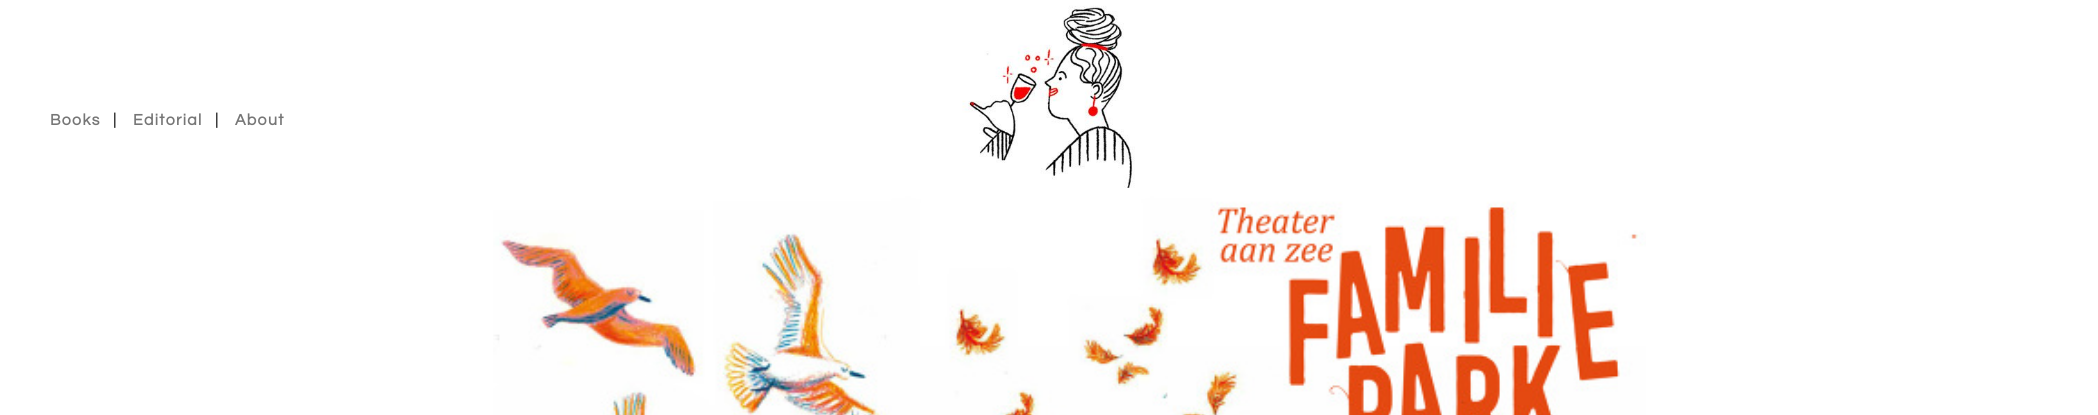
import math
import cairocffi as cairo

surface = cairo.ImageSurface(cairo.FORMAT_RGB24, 2098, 415)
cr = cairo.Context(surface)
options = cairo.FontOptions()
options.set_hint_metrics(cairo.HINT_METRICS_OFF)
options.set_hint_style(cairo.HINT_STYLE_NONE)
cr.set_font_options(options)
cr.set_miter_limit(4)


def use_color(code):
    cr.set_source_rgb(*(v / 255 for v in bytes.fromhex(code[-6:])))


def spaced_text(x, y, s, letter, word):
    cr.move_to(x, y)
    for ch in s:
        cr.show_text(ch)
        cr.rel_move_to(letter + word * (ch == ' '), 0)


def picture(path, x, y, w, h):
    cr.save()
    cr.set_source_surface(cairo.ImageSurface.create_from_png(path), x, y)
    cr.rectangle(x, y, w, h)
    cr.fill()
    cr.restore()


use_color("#ffffff")
cr.paint()
cr.select_font_face("Questrial", cairo.FONT_SLANT_NORMAL, cairo.FONT_WEIGHT_BOLD)
cr.set_font_size(16)
use_color("#767676")
spaced_text(50, 125, "Books", 1.25, 0)
use_color("#333333")
spaced_text(113, 125, "|", 1.25, 0)
use_color("#767676")
spaced_text(133, 125, "Editorial", 1.25, 0)
use_color("#333333")
spaced_text(215, 125, "|", 1.25, 0)
use_color("#767676")
spaced_text(235, 125, "About", 1.25, 0)
picture("img1.png", 962, 5, 173, 183)
picture("img2.png", 493, 187, 1153, 228)
surface.write_to_png("result.png")
